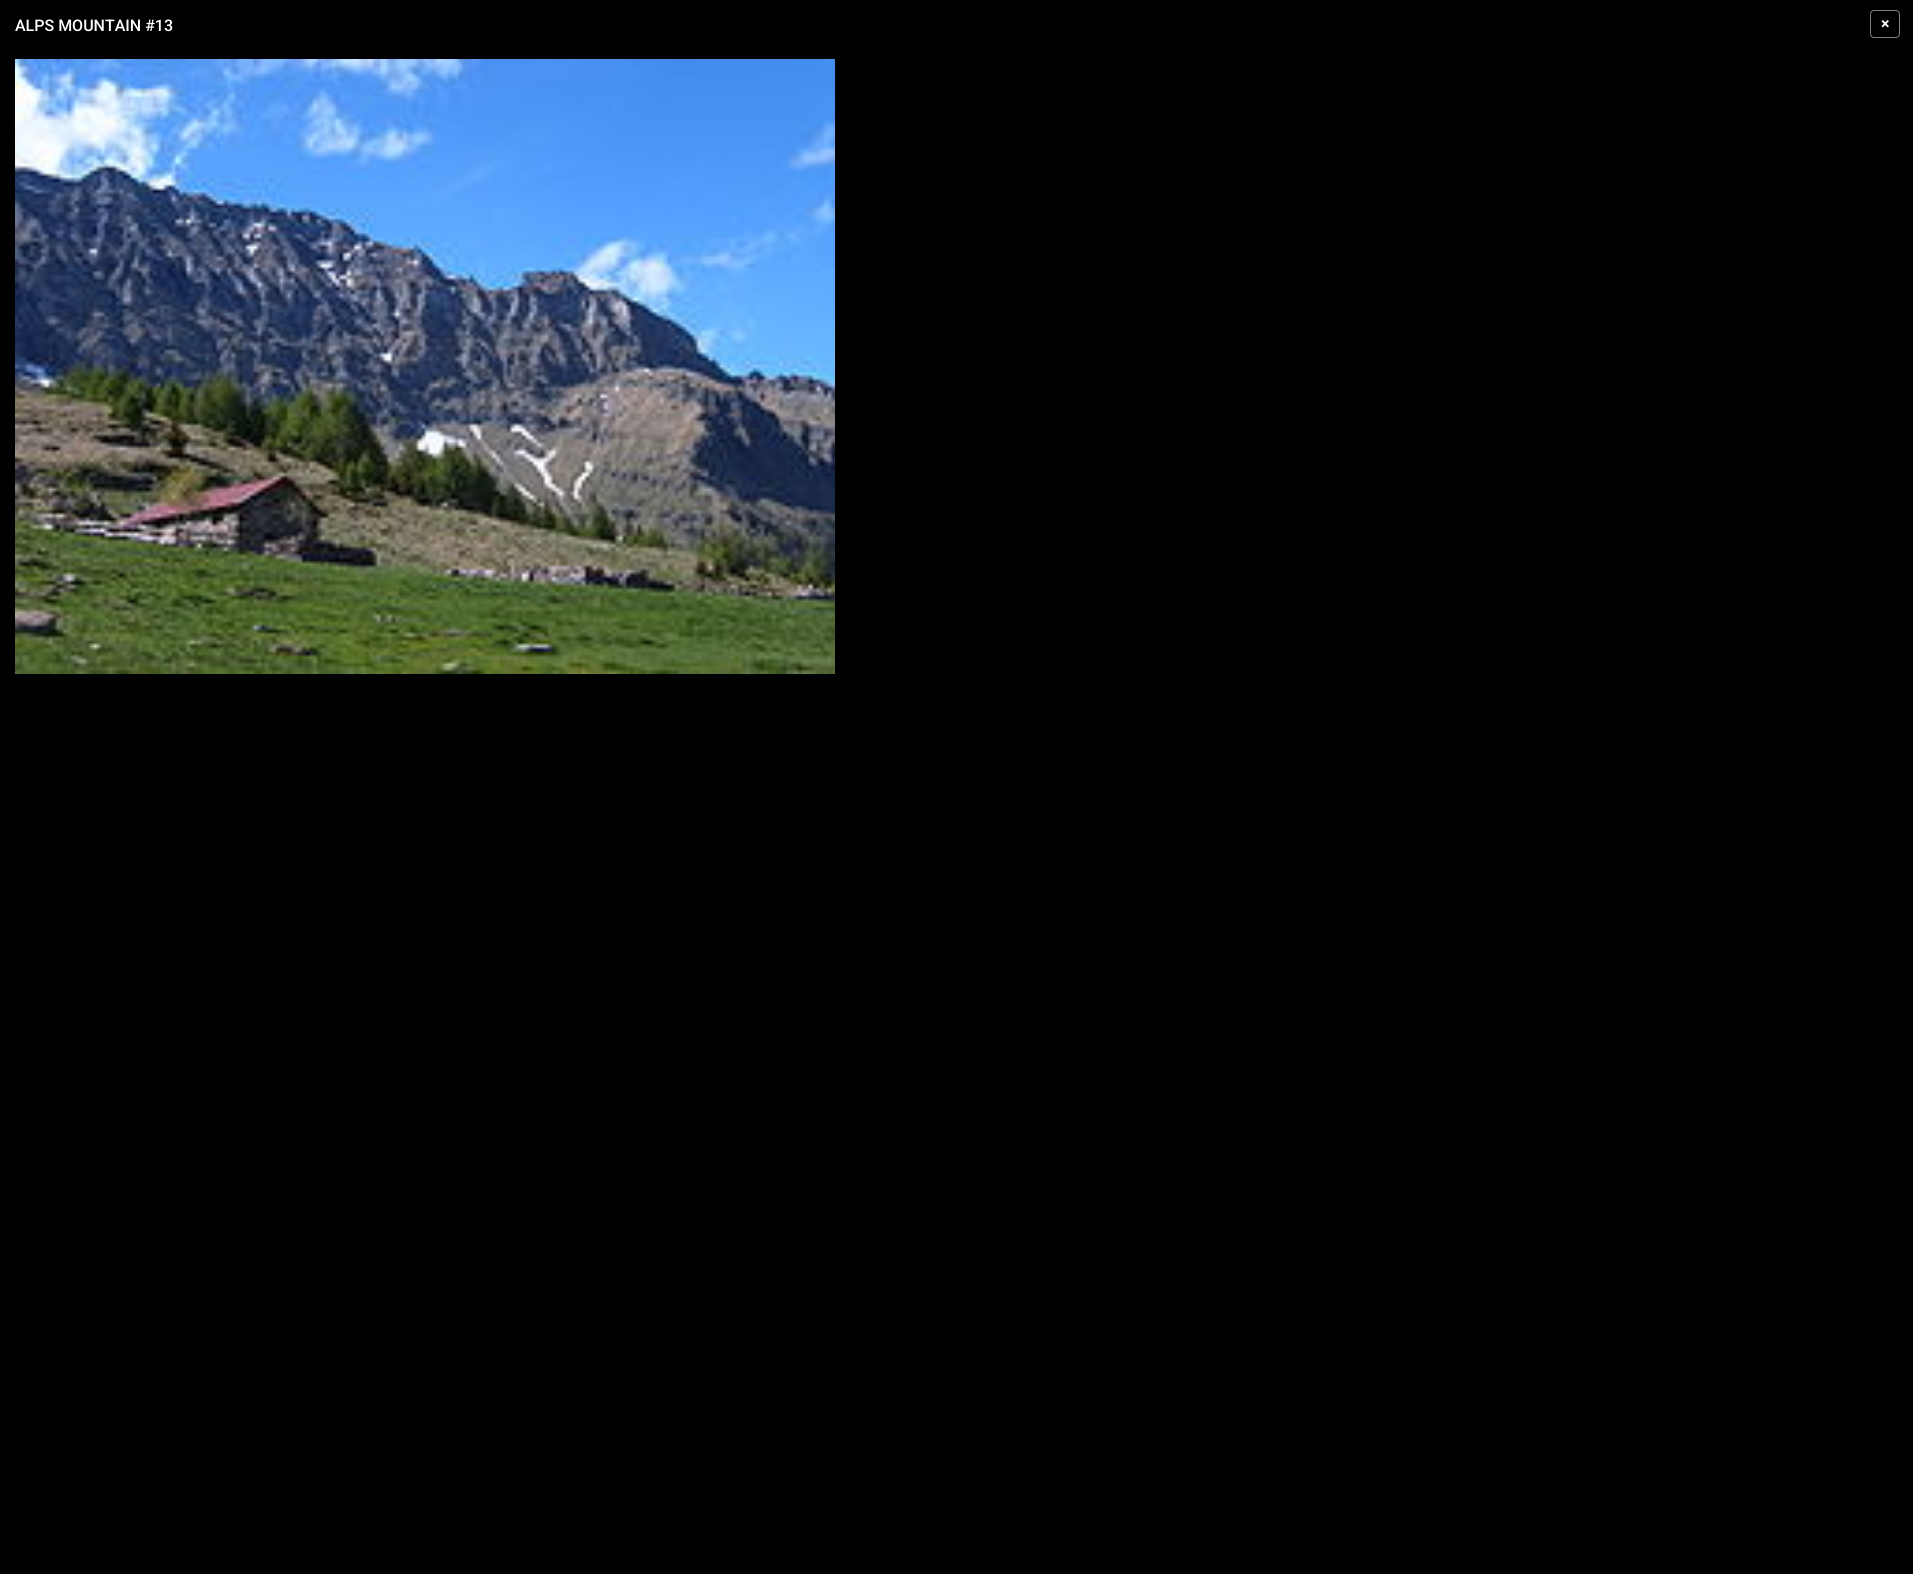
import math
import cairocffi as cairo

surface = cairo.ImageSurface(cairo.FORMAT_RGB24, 1913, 1574)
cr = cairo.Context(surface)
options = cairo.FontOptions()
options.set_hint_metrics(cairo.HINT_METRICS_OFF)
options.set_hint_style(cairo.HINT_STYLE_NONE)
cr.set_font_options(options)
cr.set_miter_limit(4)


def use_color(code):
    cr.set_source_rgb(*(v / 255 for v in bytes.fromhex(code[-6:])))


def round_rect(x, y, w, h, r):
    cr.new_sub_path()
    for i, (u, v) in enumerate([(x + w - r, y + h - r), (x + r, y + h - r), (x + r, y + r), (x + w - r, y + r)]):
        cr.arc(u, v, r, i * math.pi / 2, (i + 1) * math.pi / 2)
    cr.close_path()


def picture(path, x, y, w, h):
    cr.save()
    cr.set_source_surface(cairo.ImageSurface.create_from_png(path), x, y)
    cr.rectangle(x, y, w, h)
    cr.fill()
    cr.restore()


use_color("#000000")
cr.paint()
cr.select_font_face("Roboto Medium")
cr.set_font_size(16)
use_color("#ffffff")
cr.move_to(15, 31)
cr.show_text("ALPS MOUNTAIN #13")
picture("img1.png", 15, 59, 820, 615)
round_rect(1870.5, 10.5, 29, 27, 3.5)
use_color("#808080")
cr.set_line_width(1)
cr.stroke()
cr.select_font_face("Roboto", cairo.FONT_SLANT_NORMAL, cairo.FONT_WEIGHT_BOLD)
use_color("#ffffff")
cr.move_to(1881, 29)
cr.show_text("×")
surface.write_to_png("result.png")
